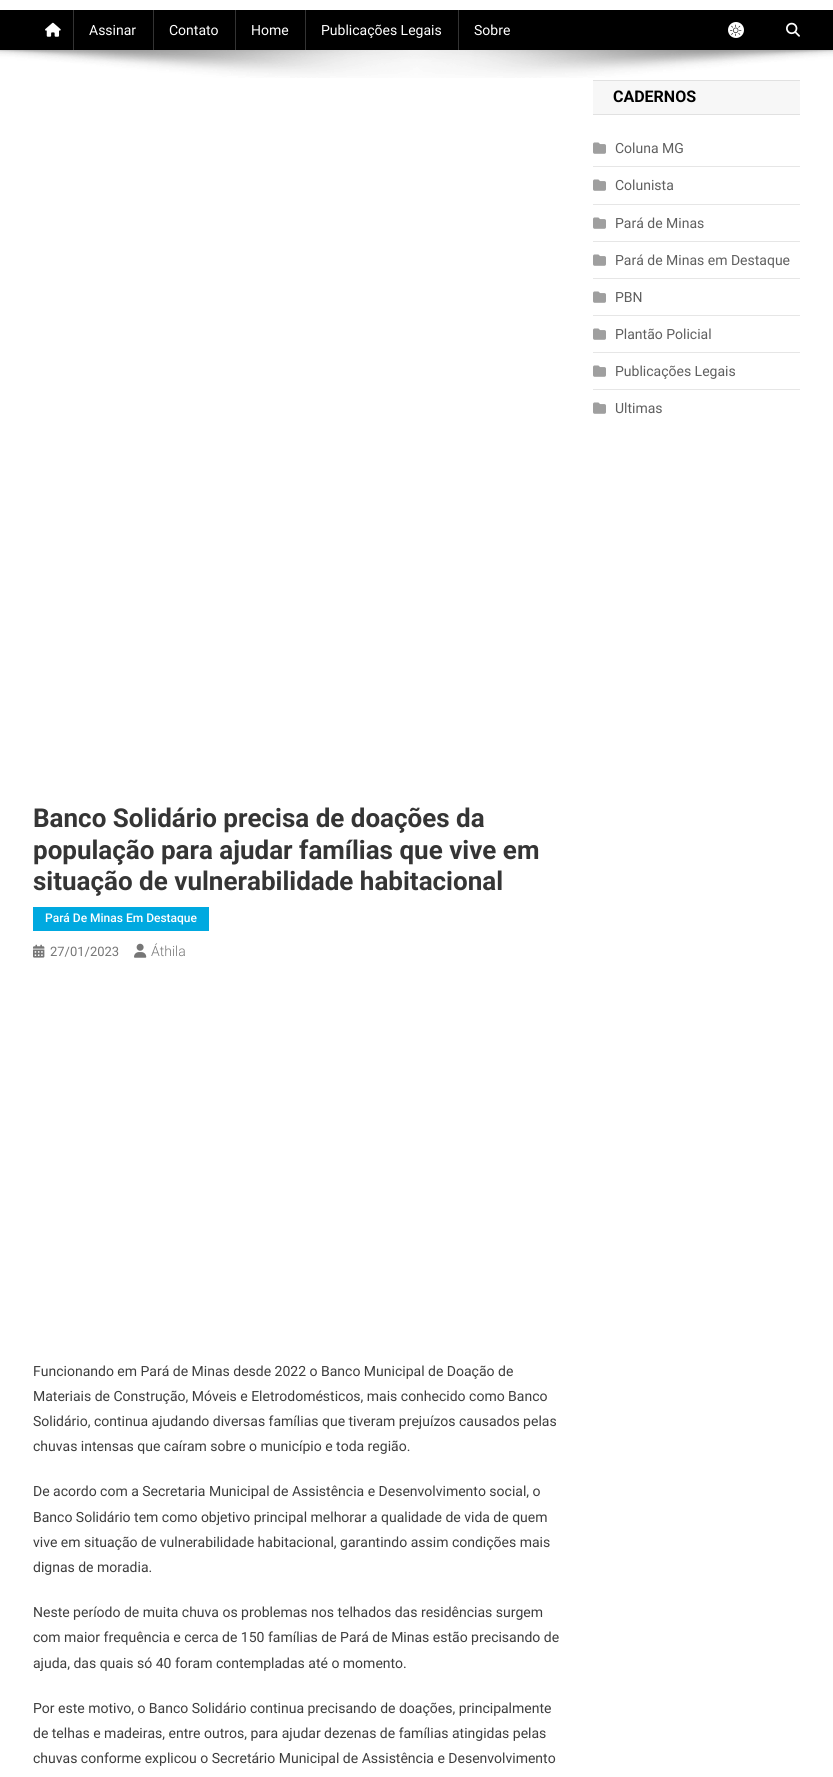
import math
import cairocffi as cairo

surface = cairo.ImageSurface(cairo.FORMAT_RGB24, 833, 1777)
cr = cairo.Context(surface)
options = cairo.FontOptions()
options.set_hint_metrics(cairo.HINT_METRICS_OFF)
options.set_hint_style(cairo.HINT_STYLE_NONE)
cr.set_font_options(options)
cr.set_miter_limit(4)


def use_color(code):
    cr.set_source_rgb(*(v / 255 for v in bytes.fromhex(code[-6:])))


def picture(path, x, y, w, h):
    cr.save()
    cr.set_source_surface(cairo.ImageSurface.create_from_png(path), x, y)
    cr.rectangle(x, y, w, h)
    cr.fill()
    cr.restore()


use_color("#ffffff")
cr.paint()
use_color("#000000")
cr.rectangle(0, 10, 833, 40)
cr.fill()
picture("img1.png", 45, 22, 16, 15)
use_color("#333333")
cr.rectangle(73, 10, 1, 40)
cr.fill()
cr.select_font_face("Roboto")
cr.set_font_size(14)
use_color("#ffffff")
cr.move_to(89, 35)
cr.show_text("Assinar")
use_color("#333333")
cr.rectangle(153, 10, 1, 40)
cr.fill()
use_color("#ffffff")
cr.move_to(169, 35)
cr.show_text("Contato")
use_color("#333333")
cr.rectangle(235, 10, 1, 40)
cr.fill()
use_color("#ffffff")
cr.move_to(251, 35)
cr.show_text("Home")
use_color("#333333")
cr.rectangle(305, 10, 1, 40)
cr.fill()
use_color("#ffffff")
cr.move_to(321, 35)
cr.show_text("Publicações Legais")
use_color("#333333")
cr.rectangle(458, 10, 1, 40)
cr.fill()
use_color("#ffffff")
cr.move_to(474, 35)
cr.show_text("Sobre")
cr.new_path()
cr.arc(736, 30, 8, 0, 2 * math.pi)
cr.fill()
picture("img2.png", 730, 24, 12, 12)
picture("img3.png", 786, 22, 14, 15)
picture("img4.png", 0, 50, 833, 28)
use_color("#f7f7f7")
cr.rectangle(593, 81, 207, 33)
cr.fill()
use_color("#e1e1e1")
cr.rectangle(593, 80, 207, 1)
cr.fill()
cr.rectangle(593, 114, 207, 1)
cr.fill()
cr.select_font_face("Roboto", cairo.FONT_SLANT_NORMAL, cairo.FONT_WEIGHT_BOLD)
cr.set_font_size(16)
use_color("#000000")
cr.move_to(613, 102)
cr.show_text("CADERNOS")
use_color("#e6e6e6")
cr.rectangle(593, 166, 207, 1)
cr.fill()
picture("img5.png", 593, 142, 13, 12)
cr.select_font_face("Roboto")
cr.set_font_size(14)
use_color("#5f5f5f")
cr.move_to(615, 153)
cr.show_text("Coluna MG")
use_color("#e6e6e6")
cr.rectangle(593, 204, 207, 1)
cr.fill()
picture("img5.png", 593, 179, 13, 12)
use_color("#5f5f5f")
cr.move_to(615, 190)
cr.show_text("Colunista")
use_color("#e6e6e6")
cr.rectangle(593, 241, 207, 1)
cr.fill()
picture("img5.png", 593, 217, 13, 12)
use_color("#5f5f5f")
cr.move_to(615, 228)
cr.show_text("Pará de Minas")
use_color("#e6e6e6")
cr.rectangle(593, 278, 207, 1)
cr.fill()
picture("img5.png", 593, 254, 13, 12)
use_color("#5f5f5f")
cr.move_to(615, 265)
cr.show_text("Pará de Minas em Destaque")
use_color("#e6e6e6")
cr.rectangle(593, 315, 207, 1)
cr.fill()
picture("img5.png", 593, 291, 13, 12)
use_color("#5f5f5f")
cr.move_to(615, 302)
cr.show_text("PBN")
use_color("#e6e6e6")
cr.rectangle(593, 352, 207, 1)
cr.fill()
picture("img5.png", 593, 328, 13, 12)
use_color("#5f5f5f")
cr.move_to(615, 339)
cr.show_text("Plantão Policial")
use_color("#e6e6e6")
cr.rectangle(593, 389, 207, 1)
cr.fill()
picture("img5.png", 593, 365, 13, 12)
use_color("#5f5f5f")
cr.move_to(615, 376)
cr.show_text("Publicações Legais")
picture("img5.png", 593, 402, 13, 12)
cr.move_to(615, 413)
cr.show_text("Ultimas")
cr.select_font_face("Roboto", cairo.FONT_SLANT_NORMAL, cairo.FONT_WEIGHT_BOLD)
cr.set_font_size(26)
use_color("#353535")
cr.move_to(33, 827)
cr.show_text("Banco Solidário precisa de doações da")
cr.move_to(33, 859)
cr.show_text("população para ajudar famílias que vive em")
cr.move_to(33, 890)
cr.show_text("situação de vulnerabilidade habitacional")
use_color("#00a9e0")
cr.rectangle(33, 907, 176, 24)
cr.fill()
cr.select_font_face("Roboto Medium")
cr.set_font_size(12)
use_color("#ffffff")
cr.move_to(45, 922)
cr.show_text("Pará De Minas Em Destaque")
picture("img6.png", 33, 944, 12, 14)
cr.select_font_face("Roboto")
cr.set_font_size(13)
use_color("#767676")
cr.move_to(50, 956)
cr.show_text("27/01/2023")
picture("img7.png", 134, 943, 13, 15)
cr.select_font_face("Roboto Light")
cr.set_font_size(14)
cr.move_to(151, 956)
cr.show_text("Áthila")
cr.select_font_face("Roboto")
use_color("#3d3d3d")
cr.move_to(33, 1376)
cr.show_text("Funcionando em Pará de Minas desde 2022 o Banco Municipal de Doação de")
cr.move_to(33, 1401)
cr.show_text("Materiais de Construção, Móveis e Eletrodomésticos, mais conhecido como Banco")
cr.move_to(33, 1426)
cr.show_text("Solidário, continua ajudando diversas famílias que tiveram prejuízos causados pelas")
cr.move_to(33, 1451)
cr.show_text("chuvas intensas que caíram sobre o município e toda região.")
cr.move_to(33, 1496)
cr.show_text("De acordo com a Secretaria Municipal de Assistência e Desenvolvimento social, o")
cr.move_to(33, 1522)
cr.show_text("Banco Solidário tem como objetivo principal melhorar a qualidade de vida de quem")
cr.move_to(33, 1547)
cr.show_text("vive em situação de vulnerabilidade habitacional, garantindo assim condições mais")
cr.move_to(33, 1572)
cr.show_text("dignas de moradia.")
cr.move_to(33, 1617)
cr.show_text("Neste período de muita chuva os problemas nos telhados das residências surgem")
cr.move_to(33, 1642)
cr.show_text("com maior frequência e cerca de 150 famílias de Pará de Minas estão precisando de")
cr.move_to(33, 1668)
cr.show_text("ajuda, das quais só 40 foram contempladas até o momento.")
cr.move_to(33, 1713)
cr.show_text("Por este motivo, o Banco Solidário continua precisando de doações, principalmente")
cr.move_to(33, 1738)
cr.show_text("de telhas e madeiras, entre outros, para ajudar dezenas de famílias atingidas pelas")
cr.move_to(33, 1763)
cr.show_text("chuvas conforme explicou o Secretário Municipal de Assistência e Desenvolvimento")
surface.write_to_png("result.png")
